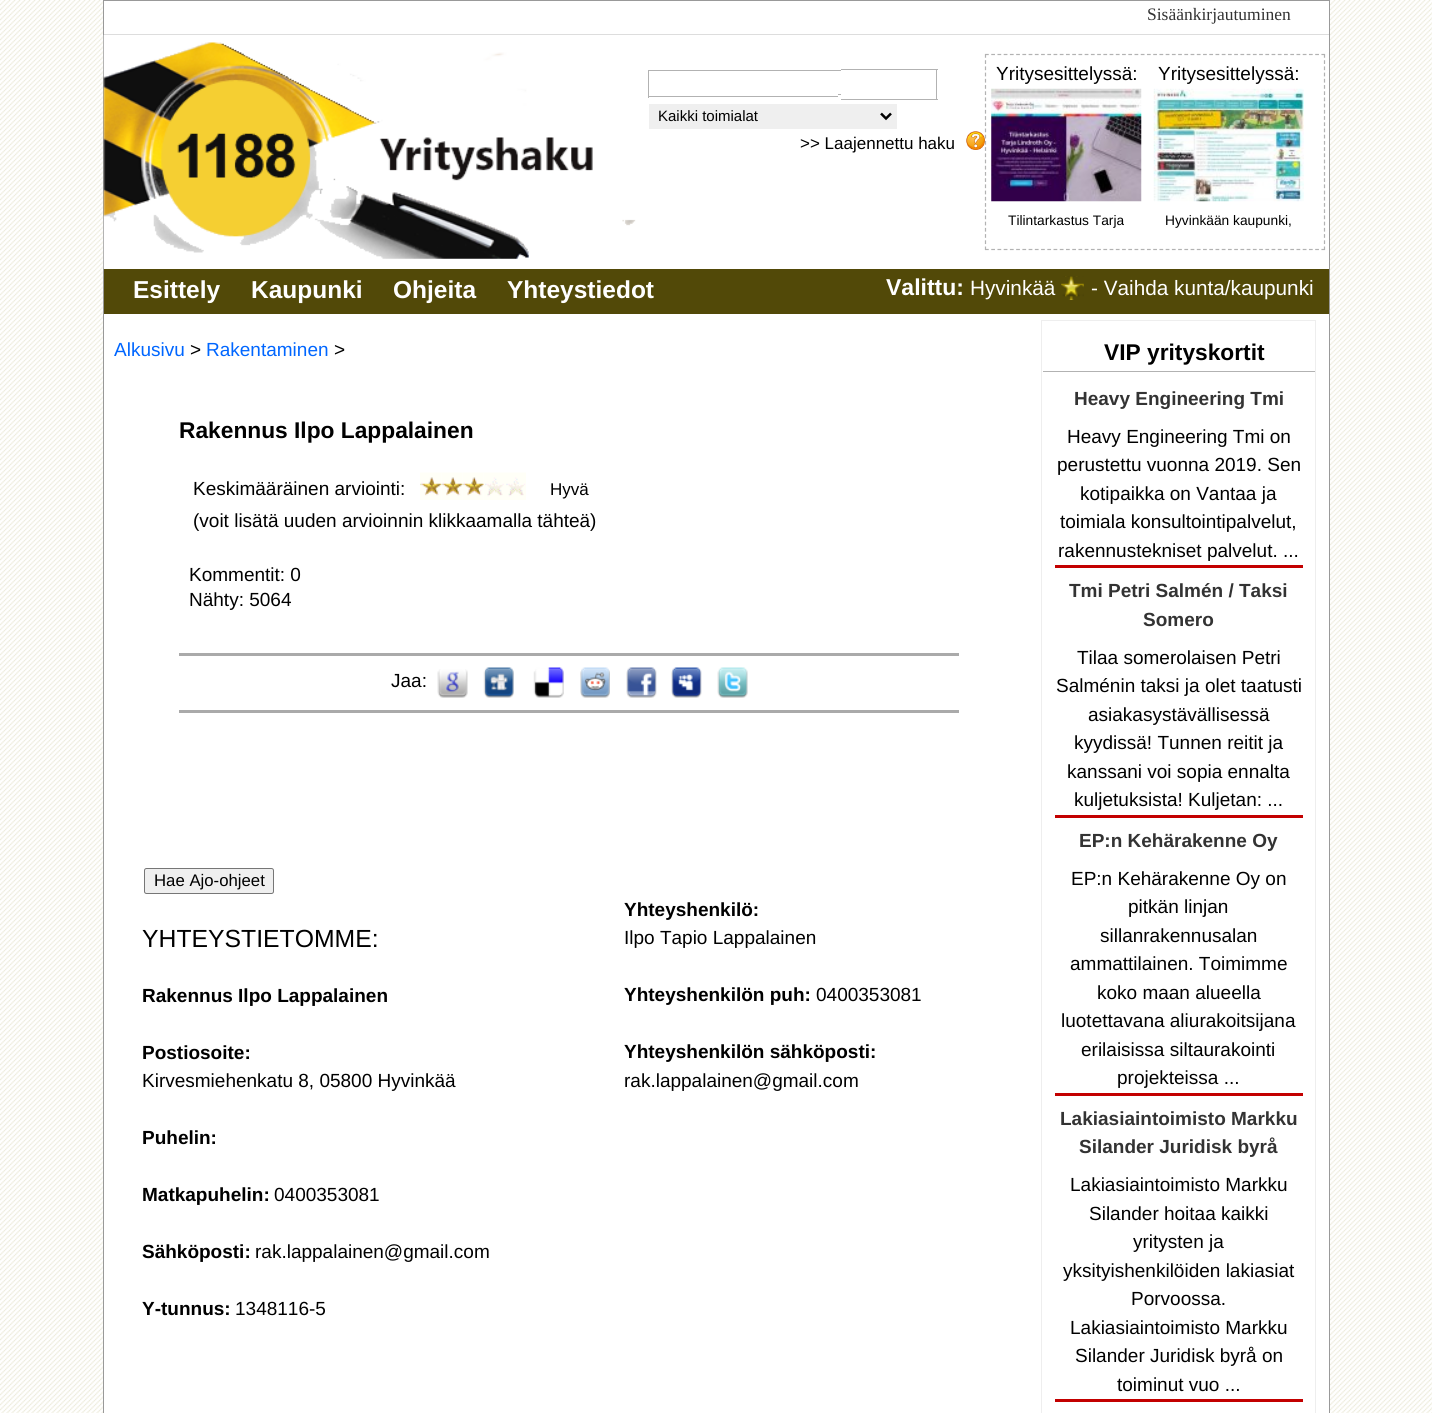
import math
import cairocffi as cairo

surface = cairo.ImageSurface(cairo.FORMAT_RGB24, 1432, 1413)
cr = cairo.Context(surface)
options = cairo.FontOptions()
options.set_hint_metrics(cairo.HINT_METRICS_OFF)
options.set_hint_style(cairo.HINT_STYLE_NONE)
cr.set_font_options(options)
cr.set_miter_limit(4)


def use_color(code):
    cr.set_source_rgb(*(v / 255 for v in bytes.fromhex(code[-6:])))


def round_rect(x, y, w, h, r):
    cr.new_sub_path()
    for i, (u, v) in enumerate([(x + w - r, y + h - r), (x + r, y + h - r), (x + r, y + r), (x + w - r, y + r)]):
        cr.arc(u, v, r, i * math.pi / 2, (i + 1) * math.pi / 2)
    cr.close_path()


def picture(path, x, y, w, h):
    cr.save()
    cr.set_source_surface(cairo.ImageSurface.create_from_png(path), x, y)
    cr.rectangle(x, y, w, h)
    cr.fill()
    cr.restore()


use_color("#ffffff")
cr.paint()
picture("img1.png", 0, 0, 1432, 1413)
use_color("#ffffff")
cr.rectangle(103.5, 0.5, 1226, 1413)
cr.fill_preserve()
use_color("#999999")
cr.set_line_width(1)
cr.stroke()
use_color("#dddddd")
cr.rectangle(104, 34, 1225, 1)
cr.fill()
cr.select_font_face("Liberation Serif")
cr.set_font_size(17.5)
use_color("#333333")
cr.move_to(1147, 20)
cr.show_text("Sisäänkirjautuminen")
picture("img2.png", 103, 35, 533, 234)
use_color("#b2b2b2")
cr.rectangle(841, 69, 97, 1)
cr.fill()
cr.rectangle(648, 70, 194, 1)
cr.fill()
cr.rectangle(936, 69, 1, 31)
cr.fill()
cr.rectangle(648, 96, 190, 1)
cr.fill()
cr.rectangle(648, 70, 1, 28)
cr.fill()
cr.rectangle(838, 94, 4, 1)
cr.fill()
use_color("#ffffff")
cr.rectangle(841, 70, 1, 25)
cr.fill()
use_color("#b2b2b2")
cr.rectangle(841, 99, 97, 1)
cr.fill()
use_color("#efefef")
cr.rectangle(649, 104, 248, 25)
cr.fill()
cr.new_path()
cr.move_to(881, 113.5)
cr.line_to(886, 118.5)
cr.line_to(891, 113.5)
use_color("#000000")
cr.set_line_width(2.5)
cr.stroke()
cr.select_font_face("Liberation Sans")
cr.set_font_size(15)
cr.move_to(658, 121)
cr.show_text("Kaikki toimialat")
cr.set_font_size(17)
cr.move_to(800, 149)
cr.show_text(">> Laajennettu haku")
picture("img3.png", 966, 131, 19, 19)
cr.new_path()
cr.move_to(985, 54.5)
cr.line_to(1325, 54.5)
use_color("#b2b2b2")
cr.set_line_width(1.2)
cr.set_dash([3.75, 2.48])
cr.stroke()
cr.new_path()
cr.move_to(1324.5, 54)
cr.line_to(1324.5, 250)
cr.set_dash([3.75, 2.46])
cr.stroke()
cr.new_path()
cr.move_to(985, 249.5)
cr.line_to(1325, 249.5)
cr.set_dash([3.75, 2.48])
cr.stroke()
cr.new_path()
cr.move_to(985.5, 54)
cr.line_to(985.5, 250)
cr.set_dash([3.75, 2.46])
cr.stroke()
cr.set_font_size(19)
use_color("#000000")
cr.move_to(996, 80)
cr.show_text("Yritysesittelyssä:")
picture("img4.png", 991, 88, 151, 114)
cr.set_font_size(13.75)
cr.move_to(1008, 225)
cr.show_text("Tilintarkastus Tarja")
cr.set_font_size(19)
cr.move_to(1158, 80)
cr.show_text("Yritysesittelyssä:")
picture("img5.png", 1153, 88, 151, 114)
cr.set_font_size(13.75)
cr.move_to(1165, 225)
cr.show_text("Hyvinkään kaupunki,")
use_color("#524908")
cr.rectangle(104, 269, 1225, 45)
cr.fill()
cr.select_font_face("Liberation Sans", cairo.FONT_SLANT_NORMAL, cairo.FONT_WEIGHT_BOLD)
cr.set_font_size(24.5)
use_color("#ffffff")
cr.move_to(133, 298)
cr.show_text("Esittely")
cr.move_to(251, 298)
cr.show_text("Kaupunki")
cr.move_to(393, 298)
cr.show_text("Ohjeita")
cr.move_to(507, 298)
cr.show_text("Yhteystiedot")
cr.set_font_size(23)
cr.move_to(886, 295)
cr.show_text("Valittu:")
cr.select_font_face("Liberation Sans")
cr.set_font_size(20.75)
cr.move_to(970, 295)
cr.show_text("Hyvinkää")
picture("img6.png", 1061, 276, 23, 24)
cr.move_to(1091, 295)
cr.show_text("- Vaihda kunta/kaupunki")
cr.set_font_size(19)
use_color("#0066ff")
cr.move_to(114, 356)
cr.show_text("Alkusivu")
use_color("#000000")
cr.move_to(190, 356)
cr.show_text(">")
use_color("#0066ff")
cr.move_to(206, 356)
cr.show_text("Rakentaminen")
use_color("#000000")
cr.move_to(334, 356)
cr.show_text(">")
cr.select_font_face("Liberation Sans", cairo.FONT_SLANT_NORMAL, cairo.FONT_WEIGHT_BOLD)
cr.set_font_size(22.75)
cr.move_to(179, 438)
cr.show_text("Rakennus Ilpo Lappalainen")
cr.select_font_face("Liberation Sans")
cr.set_font_size(19)
cr.move_to(193, 495)
cr.show_text("Keskimääräinen arviointi:")
picture("img7.png", 420, 472, 22, 28)
picture("img8.png", 441, 472, 22, 28)
picture("img9.png", 462, 472, 22, 28)
picture("img10.png", 483, 472, 22, 28)
picture("img11.png", 505, 472, 21, 28)
cr.set_font_size(17)
cr.move_to(550, 495)
cr.show_text("Hyvä")
cr.set_font_size(19)
cr.move_to(193, 527)
cr.show_text("(voit lisätä uuden arvioinnin klikkaamalla tähteä)")
cr.move_to(189, 581)
cr.show_text("Kommentit: 0")
cr.move_to(189, 606)
cr.show_text("Nähty: 5064")
use_color("#aaaaaa")
cr.rectangle(179, 653, 780, 3)
cr.fill()
cr.rectangle(179, 710, 780, 3)
cr.fill()
use_color("#000000")
cr.move_to(391, 687)
cr.show_text("Jaa:")
picture("img12.png", 437, 669, 31, 29)
picture("img13.png", 483, 667, 31, 31)
picture("img14.png", 533, 667, 31, 31)
picture("img15.png", 580, 667, 30, 31)
picture("img16.png", 626, 667, 31, 31)
picture("img17.png", 671, 667, 31, 31)
picture("img18.png", 717, 667, 31, 31)
use_color("#efefef")
round_rect(144.5, 868.5, 129, 25, 2)
cr.fill_preserve()
use_color("#767676")
cr.set_line_width(1)
cr.set_dash([])
cr.stroke()
cr.set_font_size(16.75)
use_color("#000000")
cr.move_to(154, 886)
cr.show_text("Hae Ajo-ohjeet")
cr.set_font_size(24.75)
cr.move_to(142, 947)
cr.show_text("YHTEYSTIETOMME:")
cr.select_font_face("Liberation Sans", cairo.FONT_SLANT_NORMAL, cairo.FONT_WEIGHT_BOLD)
cr.set_font_size(19)
cr.move_to(142, 1002)
cr.show_text("Rakennus Ilpo Lappalainen")
cr.move_to(142, 1059)
cr.show_text("Postiosoite:")
cr.select_font_face("Liberation Sans")
cr.move_to(142, 1087)
cr.show_text("Kirvesmiehenkatu 8, 05800 Hyvinkää")
cr.select_font_face("Liberation Sans", cairo.FONT_SLANT_NORMAL, cairo.FONT_WEIGHT_BOLD)
cr.move_to(142, 1144)
cr.show_text("Puhelin:")
cr.move_to(142, 1201)
cr.show_text("Matkapuhelin:")
cr.select_font_face("Liberation Sans")
cr.move_to(274, 1201)
cr.show_text("0400353081")
cr.select_font_face("Liberation Sans", cairo.FONT_SLANT_NORMAL, cairo.FONT_WEIGHT_BOLD)
cr.move_to(142, 1258)
cr.show_text("Sähköposti:")
cr.select_font_face("Liberation Sans")
cr.move_to(255, 1258)
cr.show_text("rak.lappalainen@gmail.com")
cr.select_font_face("Liberation Sans", cairo.FONT_SLANT_NORMAL, cairo.FONT_WEIGHT_BOLD)
cr.move_to(142, 1315)
cr.show_text("Y-tunnus:")
cr.select_font_face("Liberation Sans")
cr.move_to(235, 1315)
cr.show_text("1348116-5")
cr.select_font_face("Liberation Sans", cairo.FONT_SLANT_NORMAL, cairo.FONT_WEIGHT_BOLD)
cr.move_to(624, 916)
cr.show_text("Yhteyshenkilö:")
cr.select_font_face("Liberation Sans")
cr.move_to(624, 944)
cr.show_text("Ilpo Tapio Lappalainen")
cr.select_font_face("Liberation Sans", cairo.FONT_SLANT_NORMAL, cairo.FONT_WEIGHT_BOLD)
cr.move_to(624, 1001)
cr.show_text("Yhteyshenkilön puh:")
cr.select_font_face("Liberation Sans")
cr.move_to(816, 1001)
cr.show_text("0400353081")
cr.select_font_face("Liberation Sans", cairo.FONT_SLANT_NORMAL, cairo.FONT_WEIGHT_BOLD)
cr.move_to(624, 1058)
cr.show_text("Yhteyshenkilön sähköposti:")
cr.select_font_face("Liberation Sans")
cr.move_to(624, 1087)
cr.show_text("rak.lappalainen@gmail.com")
cr.rectangle(1041.5, 320.5, 274, 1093)
use_color("#eeeeee")
cr.stroke()
use_color("#b2b2b2")
cr.rectangle(1043, 371, 272, 1)
cr.fill()
cr.select_font_face("Liberation Sans", cairo.FONT_SLANT_NORMAL, cairo.FONT_WEIGHT_BOLD)
cr.set_font_size(22.75)
use_color("#000000")
cr.move_to(1104, 360)
cr.show_text("VIP yrityskortit")
cr.set_font_size(19)
use_color("#333333")
cr.move_to(1074, 405)
cr.show_text("Heavy Engineering Tmi")
cr.select_font_face("Liberation Sans")
use_color("#000000")
cr.move_to(1067, 443)
cr.show_text("Heavy Engineering Tmi on")
cr.move_to(1057, 471)
cr.show_text("perustettu vuonna 2019. Sen")
cr.move_to(1080, 500)
cr.show_text("kotipaikka on Vantaa ja")
cr.move_to(1060, 528)
cr.show_text("toimiala konsultointipalvelut,")
cr.move_to(1058, 557)
cr.show_text("rakennustekniset palvelut. ...")
use_color("#c30000")
cr.rectangle(1055, 565, 248, 3)
cr.fill()
cr.select_font_face("Liberation Sans", cairo.FONT_SLANT_NORMAL, cairo.FONT_WEIGHT_BOLD)
use_color("#333333")
cr.move_to(1069, 597)
cr.show_text("Tmi Petri Salmén / Taksi")
cr.move_to(1143, 626)
cr.show_text("Somero")
cr.select_font_face("Liberation Sans")
use_color("#000000")
cr.move_to(1077, 664)
cr.show_text("Tilaa somerolaisen Petri")
cr.move_to(1056, 692)
cr.show_text("Salménin taksi ja olet taatusti")
cr.move_to(1088, 721)
cr.show_text("asiakasystävällisessä")
cr.move_to(1074, 749)
cr.show_text("kyydissä! Tunnen reitit ja")
cr.move_to(1067, 778)
cr.show_text("kanssani voi sopia ennalta")
cr.move_to(1074, 806)
cr.show_text("kuljetuksista! Kuljetan: ...")
use_color("#c30000")
cr.rectangle(1055, 815, 248, 3)
cr.fill()
cr.select_font_face("Liberation Sans", cairo.FONT_SLANT_NORMAL, cairo.FONT_WEIGHT_BOLD)
use_color("#333333")
cr.move_to(1079, 847)
cr.show_text("EP:n Kehärakenne Oy")
cr.select_font_face("Liberation Sans")
use_color("#000000")
cr.move_to(1071, 885)
cr.show_text("EP:n Kehärakenne Oy on")
cr.move_to(1128, 913)
cr.show_text("pitkän linjan")
cr.move_to(1100, 942)
cr.show_text("sillanrakennusalan")
cr.move_to(1070, 970)
cr.show_text("ammattilainen. Toimimme")
cr.move_to(1097, 999)
cr.show_text("koko maan alueella")
cr.move_to(1061, 1027)
cr.show_text("luotettavana aliurakoitsijana")
cr.move_to(1081, 1056)
cr.show_text("erilaisissa siltaurakointi")
cr.move_to(1117, 1084)
cr.show_text("projekteissa ...")
use_color("#c30000")
cr.rectangle(1055, 1093, 248, 3)
cr.fill()
cr.select_font_face("Liberation Sans", cairo.FONT_SLANT_NORMAL, cairo.FONT_WEIGHT_BOLD)
use_color("#333333")
cr.move_to(1060, 1125)
cr.show_text("Lakiasiaintoimisto Markku")
cr.move_to(1079, 1153)
cr.show_text("Silander Juridisk byrå")
cr.select_font_face("Liberation Sans")
use_color("#000000")
cr.move_to(1070, 1191)
cr.show_text("Lakiasiaintoimisto Markku")
cr.move_to(1089, 1220)
cr.show_text("Silander hoitaa kaikki")
cr.move_to(1133, 1248)
cr.show_text("yritysten ja")
cr.move_to(1063, 1277)
cr.show_text("yksityishenkilöiden lakiasiat")
cr.move_to(1131, 1305)
cr.show_text("Porvoossa.")
cr.move_to(1070, 1334)
cr.show_text("Lakiasiaintoimisto Markku")
cr.move_to(1075, 1362)
cr.show_text("Silander Juridisk byrå on")
cr.move_to(1117, 1391)
cr.show_text("toiminut vuo ...")
use_color("#c30000")
cr.rectangle(1055, 1399, 248, 3)
cr.fill()
surface.write_to_png("result.png")
